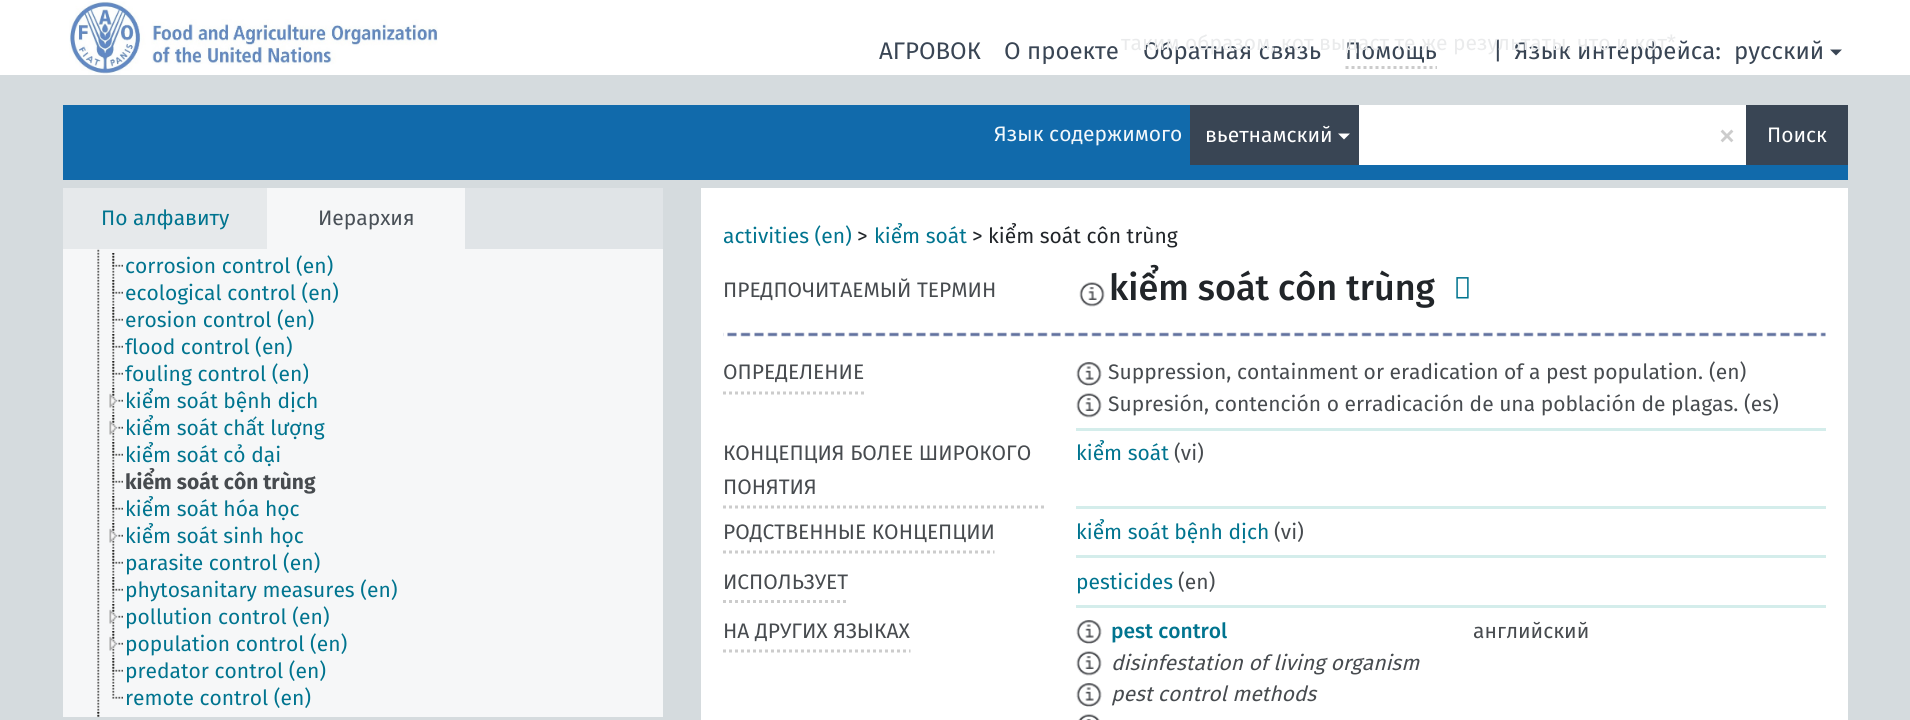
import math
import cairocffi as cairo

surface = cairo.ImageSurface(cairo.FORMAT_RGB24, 1910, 720)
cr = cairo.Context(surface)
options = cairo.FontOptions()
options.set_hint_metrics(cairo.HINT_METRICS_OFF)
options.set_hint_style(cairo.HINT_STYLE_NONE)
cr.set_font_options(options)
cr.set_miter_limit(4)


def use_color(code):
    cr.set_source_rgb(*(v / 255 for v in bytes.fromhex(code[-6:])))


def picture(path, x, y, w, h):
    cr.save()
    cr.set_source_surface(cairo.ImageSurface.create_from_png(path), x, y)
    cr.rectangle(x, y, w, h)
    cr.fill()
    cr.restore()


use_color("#d5dbde")
cr.paint()
use_color("#ffffff")
cr.rectangle(0, 0, 1910, 75)
cr.fill()
picture("img1.png", 69, 1, 369, 74)
cr.select_font_face("Fira Sans")
cr.set_font_size(24)
use_color("#394554")
cr.move_to(1345, 59)
cr.show_text("Помощь")
cr.move_to(1143, 59)
cr.show_text("Обратная связь")
cr.move_to(1493, 59)
cr.show_text("|")
cr.move_to(1514, 59)
cr.show_text("Язык интерфейса:")
cr.set_font_size(21)
use_color("#eaebec")
cr.move_to(1121, 50)
cr.show_text("таким образом, кот выдаст те же результаты, что и кот*.")
cr.new_path()
cr.move_to(1345.5, 67.5)
cr.line_to(1437, 67.5)
use_color("#cccccc")
cr.set_line_width(3)
cr.set_dash([3, 3])
cr.stroke()
cr.set_font_size(24)
use_color("#394554")
cr.move_to(879, 59)
cr.show_text("АГРОВОК")
cr.move_to(1004, 59)
cr.show_text("О проекте")
cr.move_to(1734, 59)
cr.show_text("русский")
cr.new_path()
cr.move_to(1830, 49.5)
cr.line_to(1842, 49.5)
cr.line_to(1836, 55.5)
cr.close_path()
cr.fill()
use_color("#116aab")
cr.rectangle(63, 105, 1785, 75)
cr.fill()
cr.set_font_size(21)
use_color("#f3f8fb")
cr.move_to(994, 141)
cr.show_text("Язык содержимого")
use_color("#394554")
cr.rectangle(1190, 105, 169, 60)
cr.fill()
use_color("#ffffff")
cr.move_to(1205, 142)
cr.show_text("вьетнамский")
cr.new_path()
cr.move_to(1338, 133.5)
cr.line_to(1350, 133.5)
cr.line_to(1344, 139.5)
cr.close_path()
cr.fill()
cr.rectangle(1359, 105, 387, 60)
cr.fill()
cr.set_font_size(36)
use_color("#cccccc")
cr.move_to(1718, 147)
cr.show_text("×")
use_color("#394554")
cr.rectangle(1746, 105, 102, 60)
cr.fill()
cr.set_font_size(21)
use_color("#ffffff")
cr.move_to(1767, 142)
cr.show_text("Поиск")
use_color("#e0e4e7")
cr.rectangle(465, 188, 198, 61)
cr.fill()
use_color("#e6e9eb")
cr.rectangle(63, 188, 204, 61)
cr.fill()
use_color("#00748f")
cr.move_to(101, 225)
cr.show_text("По алфавиту")
use_color("#f6f7f8")
cr.rectangle(267, 188, 198, 61)
cr.fill()
use_color("#495057")
cr.move_to(318, 225)
cr.show_text("Иерархия")
use_color("#f6f7f8")
cr.rectangle(63, 249, 600, 468)
cr.fill()
picture("img2.png", 97, 249, 3, 463)
picture("img3.png", 112, 253, 3, 26)
picture("img4.png", 112, 253, 11, 14)
use_color("#00748f")
cr.move_to(125, 273)
cr.show_text("corrosion control (en)")
picture("img3.png", 112, 280, 3, 26)
picture("img4.png", 112, 280, 11, 14)
cr.move_to(125, 300)
cr.show_text("ecological control (en)")
picture("img3.png", 112, 307, 3, 26)
picture("img4.png", 112, 307, 11, 14)
cr.move_to(125, 327)
cr.show_text("erosion control (en)")
picture("img3.png", 112, 334, 3, 26)
picture("img4.png", 112, 334, 11, 14)
cr.move_to(125, 354)
cr.show_text("flood control (en)")
picture("img3.png", 112, 361, 3, 26)
picture("img4.png", 112, 361, 11, 14)
cr.move_to(125, 381)
cr.show_text("fouling control (en)")
picture("img3.png", 112, 388, 3, 26)
picture("img5.png", 109, 388, 14, 20)
cr.move_to(125, 408)
cr.show_text("kiểm soát bệnh dịch")
picture("img3.png", 112, 415, 3, 26)
picture("img5.png", 109, 415, 14, 20)
cr.move_to(125, 435)
cr.show_text("kiểm soát chất lượng")
picture("img3.png", 112, 442, 3, 26)
picture("img4.png", 112, 442, 11, 14)
cr.move_to(125, 462)
cr.show_text("kiểm soát cỏ dại")
picture("img3.png", 112, 469, 3, 26)
picture("img4.png", 112, 469, 11, 14)
cr.select_font_face("Fira Sans", cairo.FONT_SLANT_NORMAL, cairo.FONT_WEIGHT_BOLD)
use_color("#474b4f")
cr.move_to(125, 489)
cr.show_text("kiểm soát côn trùng")
picture("img3.png", 112, 496, 3, 26)
picture("img4.png", 112, 496, 11, 14)
cr.select_font_face("Fira Sans")
use_color("#00748f")
cr.move_to(125, 516)
cr.show_text("kiểm soát hóa học")
picture("img3.png", 112, 523, 3, 26)
picture("img5.png", 109, 523, 14, 20)
cr.move_to(125, 543)
cr.show_text("kiểm soát sinh học")
picture("img3.png", 112, 550, 3, 26)
picture("img4.png", 112, 550, 11, 14)
cr.move_to(125, 570)
cr.show_text("parasite control (en)")
picture("img3.png", 112, 577, 3, 26)
picture("img4.png", 112, 577, 11, 14)
cr.move_to(125, 597)
cr.show_text("phytosanitary measures (en)")
picture("img3.png", 112, 604, 3, 26)
picture("img5.png", 109, 604, 14, 20)
cr.move_to(125, 624)
cr.show_text("pollution control (en)")
picture("img3.png", 112, 631, 3, 26)
picture("img5.png", 109, 631, 14, 20)
cr.move_to(125, 651)
cr.show_text("population control (en)")
picture("img3.png", 112, 658, 3, 26)
picture("img4.png", 112, 658, 11, 14)
cr.move_to(125, 678)
cr.show_text("predator control (en)")
picture("img6.png", 112, 685, 11, 14)
cr.move_to(125, 705)
cr.show_text("remote control (en)")
picture("img7.png", 97, 712, 3, 5)
picture("img8.png", 97, 712, 3, 5)
use_color("#ffffff")
cr.rectangle(701, 188, 1147, 532)
cr.fill()
use_color("#00748f")
cr.move_to(723, 243)
cr.show_text("activities (en)")
use_color("#212529")
cr.move_to(857, 243)
cr.show_text(">")
use_color("#00748f")
cr.move_to(874, 243)
cr.show_text("kiểm soát")
use_color("#212529")
cr.move_to(972, 243)
cr.show_text("> kiểm soát côn trùng")
use_color("#474b4f")
cr.move_to(723, 297)
cr.show_text("ПРЕДПОЧИТАЕМЫЙ ТЕРМИН")
picture("img9.png", 1079, 282, 26, 25)
cr.select_font_face("Fira Sans Medium")
cr.set_font_size(36)
use_color("#212529")
cr.move_to(1109, 300)
cr.show_text("kiểm soát côn trùng")
picture("img10.png", 1456, 277, 13, 22)
picture("img11.png", 723, 332, 1103, 5)
cr.new_path()
cr.move_to(723, 393)
cr.line_to(864, 393)
use_color("#cccccc")
cr.stroke()
cr.select_font_face("Fira Sans")
cr.set_font_size(21)
use_color("#474b4f")
cr.move_to(723, 379)
cr.show_text("ОПРЕДЕЛЕНИЕ")
use_color("#d4edeb")
cr.rectangle(1076, 428, 750, 3)
cr.fill()
picture("img12.png", 1076, 362, 26, 24)
use_color("#474b4f")
cr.move_to(1108, 379)
cr.show_text("Suppression, containment or eradication of a pest population.")
cr.move_to(1709, 379)
cr.show_text("(en)")
picture("img9.png", 1076, 393, 26, 25)
cr.move_to(1108, 411)
cr.show_text("Supresión, contención o erradicación de una población de plagas.")
cr.move_to(1744, 411)
cr.show_text("(es)")
cr.new_path()
cr.move_to(723, 507)
cr.line_to(1045.5, 507)
use_color("#cccccc")
cr.stroke()
use_color("#474b4f")
cr.move_to(723, 460)
cr.show_text("КОНЦЕПЦИЯ БОЛЕЕ ШИРОКОГО")
cr.move_to(723, 494)
cr.show_text("ПОНЯТИЯ")
use_color("#d4edeb")
cr.rectangle(1076, 506, 750, 3)
cr.fill()
use_color("#00748f")
cr.move_to(1076, 460)
cr.show_text("kiểm soát")
use_color("#474b4f")
cr.move_to(1174, 460)
cr.show_text("(vi)")
cr.new_path()
cr.move_to(723, 552)
cr.line_to(994.5, 552)
use_color("#cccccc")
cr.stroke()
use_color("#474b4f")
cr.move_to(723, 539)
cr.show_text("РОДСТВЕННЫЕ КОНЦЕПЦИИ")
use_color("#d4edeb")
cr.rectangle(1076, 555, 750, 3)
cr.fill()
use_color("#00748f")
cr.move_to(1076, 539)
cr.show_text("kiểm soát bệnh dịch")
use_color("#474b4f")
cr.move_to(1274, 539)
cr.show_text("(vi)")
cr.new_path()
cr.move_to(723, 601.5)
cr.line_to(847.5, 601.5)
use_color("#cccccc")
cr.stroke()
use_color("#474b4f")
cr.move_to(723, 589)
cr.show_text("ИСПОЛЬЗУЕТ")
use_color("#d4edeb")
cr.rectangle(1076, 605, 750, 3)
cr.fill()
use_color("#00748f")
cr.move_to(1076, 589)
cr.show_text("pesticides")
use_color("#474b4f")
cr.move_to(1178, 589)
cr.show_text("(en)")
cr.new_path()
cr.move_to(723, 651)
cr.line_to(910.5, 651)
use_color("#cccccc")
cr.stroke()
use_color("#474b4f")
cr.move_to(723, 638)
cr.show_text("НА ДРУГИХ ЯЗЫКАХ")
picture("img12.png", 1076, 620, 26, 24)
cr.select_font_face("Fira Sans Medium")
use_color("#00748f")
cr.move_to(1111, 638)
cr.show_text("pest control")
cr.select_font_face("Fira Sans")
use_color("#474b4f")
cr.move_to(1473, 638)
cr.show_text("английский")
picture("img9.png", 1076, 651, 26, 25)
cr.select_font_face("Fira Sans", cairo.FONT_SLANT_ITALIC)
cr.move_to(1111, 670)
cr.show_text("disinfestation of living organism")
picture("img12.png", 1076, 683, 26, 24)
cr.move_to(1111, 701)
cr.show_text("pest control methods")
picture("img13.png", 1078, 714, 22, 6)
surface.write_to_png("result.png")
